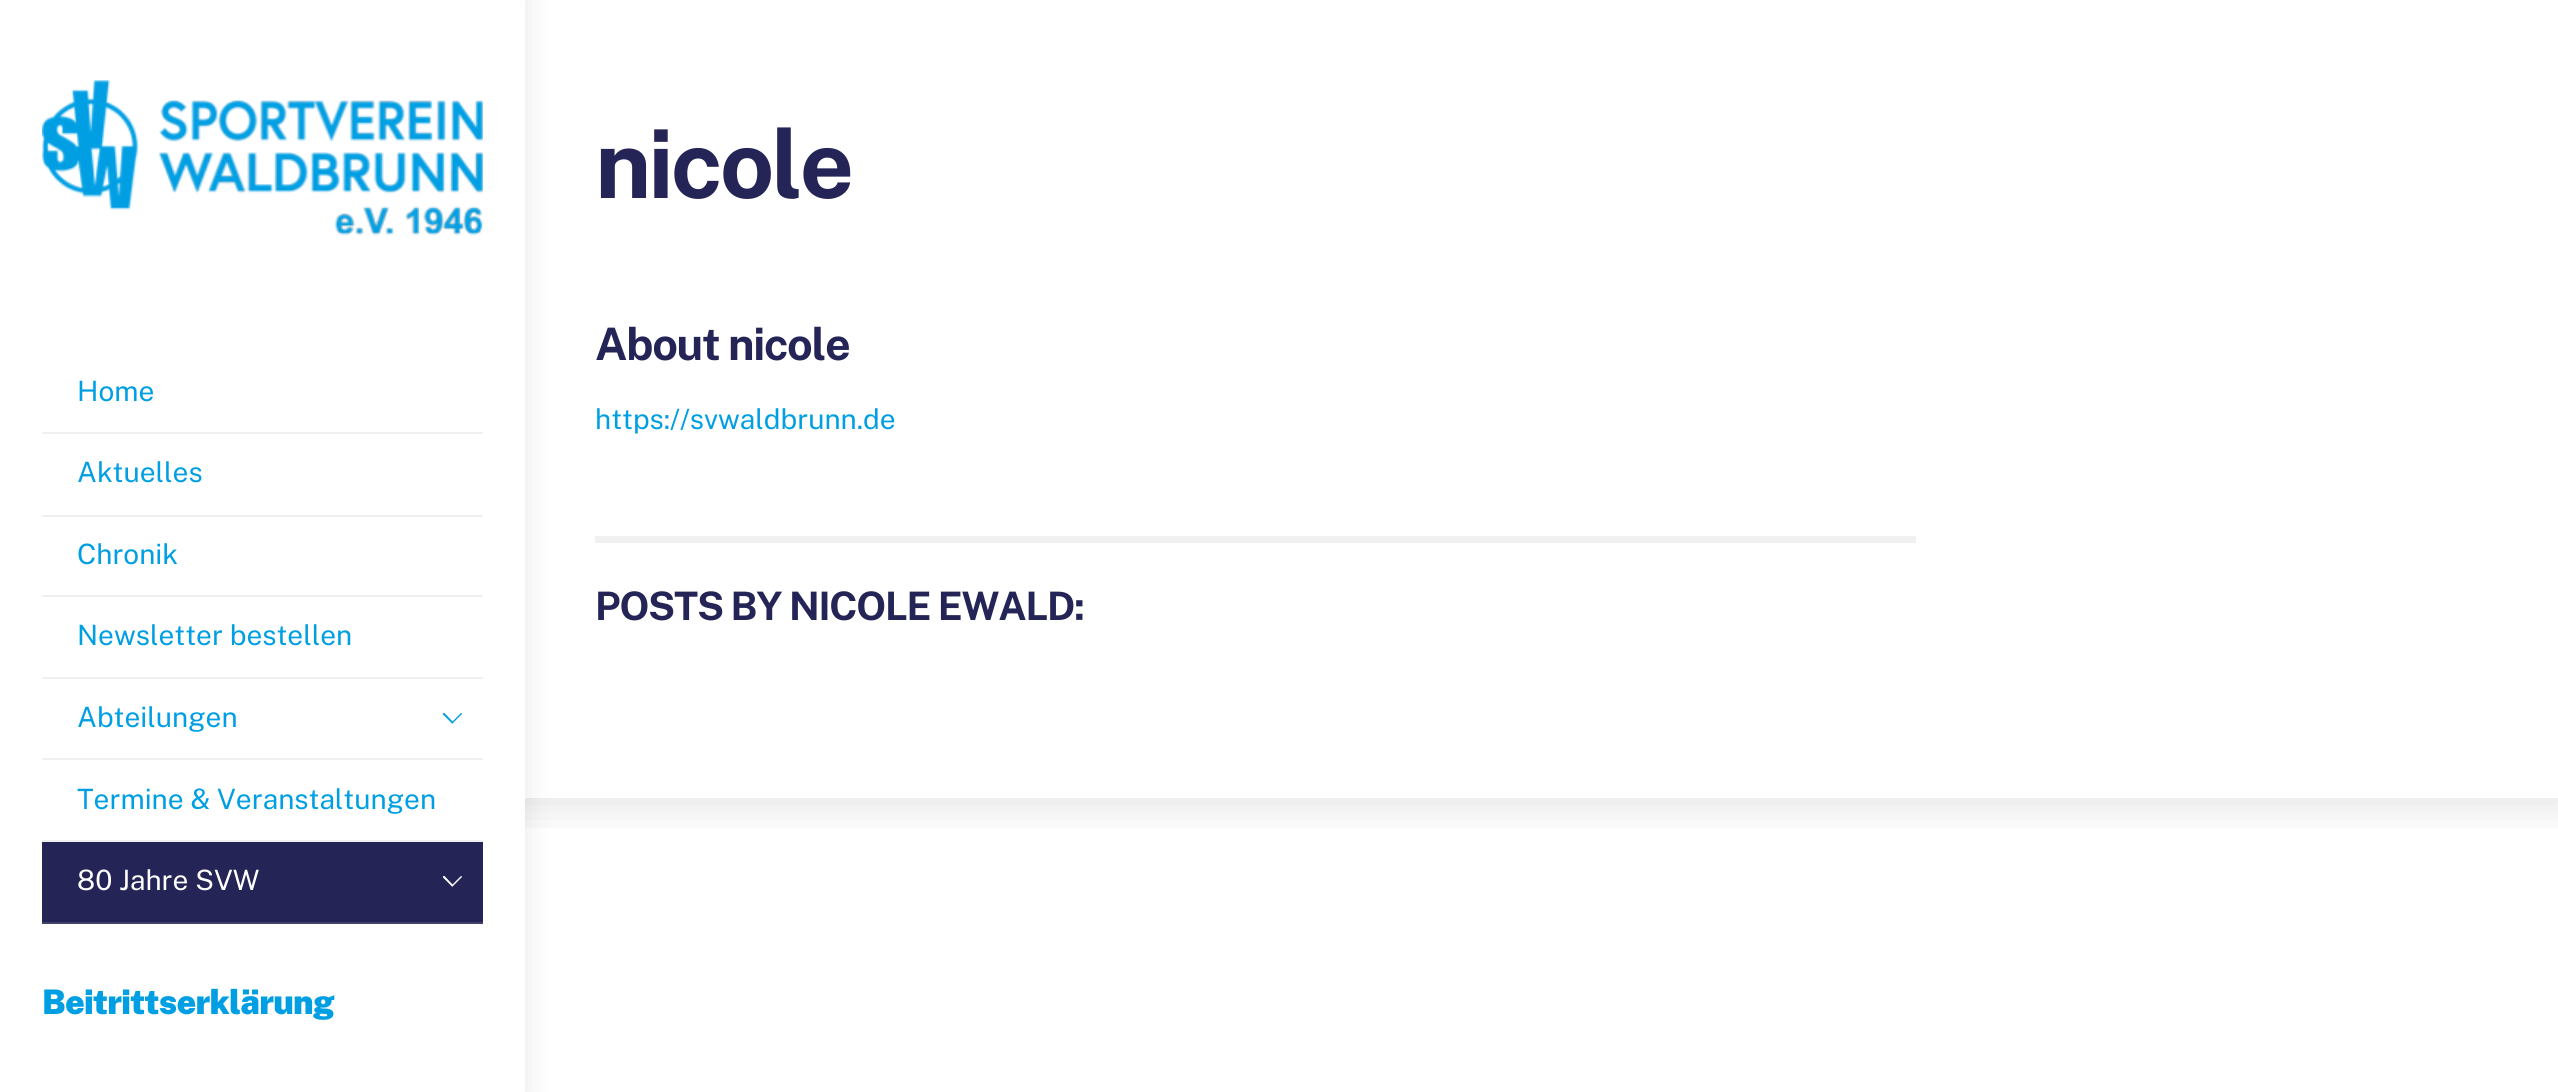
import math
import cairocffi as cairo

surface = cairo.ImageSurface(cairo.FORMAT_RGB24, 2558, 1092)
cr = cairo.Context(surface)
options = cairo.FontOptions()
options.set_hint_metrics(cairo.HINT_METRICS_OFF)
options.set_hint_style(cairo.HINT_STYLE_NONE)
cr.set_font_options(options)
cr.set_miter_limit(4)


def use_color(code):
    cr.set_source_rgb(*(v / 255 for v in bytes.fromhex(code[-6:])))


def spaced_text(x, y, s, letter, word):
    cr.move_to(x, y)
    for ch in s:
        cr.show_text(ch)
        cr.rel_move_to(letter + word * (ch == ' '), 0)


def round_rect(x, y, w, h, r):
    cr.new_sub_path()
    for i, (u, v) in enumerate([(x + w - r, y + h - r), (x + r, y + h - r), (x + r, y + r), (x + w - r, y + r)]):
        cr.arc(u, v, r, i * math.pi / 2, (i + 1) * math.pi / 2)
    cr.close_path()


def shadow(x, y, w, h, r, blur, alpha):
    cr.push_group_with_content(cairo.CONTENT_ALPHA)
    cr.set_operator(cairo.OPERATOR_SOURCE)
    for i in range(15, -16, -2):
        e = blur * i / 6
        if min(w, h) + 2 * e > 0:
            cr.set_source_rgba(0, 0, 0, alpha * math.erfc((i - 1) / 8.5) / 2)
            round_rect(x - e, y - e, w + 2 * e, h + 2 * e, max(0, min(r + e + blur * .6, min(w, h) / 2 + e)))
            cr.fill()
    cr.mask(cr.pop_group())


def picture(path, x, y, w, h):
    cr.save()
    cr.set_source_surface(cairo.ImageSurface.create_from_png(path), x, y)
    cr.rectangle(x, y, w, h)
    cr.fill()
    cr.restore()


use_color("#ffffff")
cr.paint()
use_color("#000000")
shadow(-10, -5, 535, 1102, 0, 14, 0.1)
cr.save()
cr.rectangle(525, 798, 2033, 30)
cr.clip()
shadow(-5, 0, 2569, 809, 0, 22, 0.1)
cr.restore()
use_color("#ffffff")
cr.rectangle(0, 0, 525, 1092)
cr.fill()
picture("img1.png", 42, 80, 441, 156)
use_color("#f0f0f0")
cr.rectangle(42, 432, 441, 2)
cr.fill()
cr.select_font_face("Public Sans")
cr.set_font_size(28)
use_color("#009fe3")
cr.move_to(77, 401)
cr.show_text("Home")
use_color("#f0f0f0")
cr.rectangle(42, 515, 441, 2)
cr.fill()
use_color("#009fe3")
cr.move_to(77, 482)
cr.show_text("Aktuelles")
use_color("#f0f0f0")
cr.rectangle(42, 595, 441, 2)
cr.fill()
use_color("#009fe3")
cr.move_to(77, 564)
cr.show_text("Chronik")
use_color("#f0f0f0")
cr.rectangle(42, 677, 441, 2)
cr.fill()
use_color("#009fe3")
cr.move_to(77, 645)
cr.show_text("Newsletter bestellen")
use_color("#f0f0f0")
cr.rectangle(42, 758, 441, 2)
cr.fill()
use_color("#009fe3")
cr.move_to(77, 727)
cr.show_text("Abteilungen")
cr.new_path()
cr.move_to(444.5, 713)
cr.line_to(453, 722)
cr.curve_to(453.5, 722.5, 453, 723.5, 452, 723.5)
cr.line_to(443, 714.5)
cr.curve_to(442.5, 713.5, 443.5, 712.5, 444.5, 713)
cr.close_path()
cr.fill()
cr.new_path()
cr.move_to(452, 722)
cr.line_to(461, 713)
cr.curve_to(461.5, 712.5, 462, 713.5, 462, 714)
cr.line_to(453, 723)
cr.curve_to(452, 724, 451, 722.5, 452, 722)
cr.close_path()
cr.fill()
use_color("#f0f0f0")
cr.rectangle(42, 840, 441, 2)
cr.fill()
use_color("#009fe3")
cr.move_to(77, 809)
cr.show_text("Termine & Veranstaltungen")
use_color("#242457")
cr.rectangle(42, 842, 441, 80)
cr.fill()
use_color("#41416a")
cr.rectangle(42, 922, 441, 2)
cr.fill()
use_color("#ffffff")
cr.move_to(77, 890)
cr.show_text("80 Jahre SVW")
cr.new_path()
cr.move_to(444.5, 876)
cr.line_to(453, 885)
cr.curve_to(453.5, 886, 453, 886.5, 452, 886.5)
cr.line_to(443, 877.5)
cr.curve_to(442.5, 876.5, 443.5, 875.5, 444.5, 876)
cr.close_path()
cr.fill()
cr.new_path()
cr.move_to(452, 885)
cr.line_to(461, 876)
cr.curve_to(461.5, 876, 462, 876.5, 462, 877)
cr.line_to(453, 886)
cr.curve_to(452, 887, 451, 885.5, 452, 885)
cr.close_path()
cr.fill()
cr.select_font_face("Public Sans Black")
cr.set_font_size(33.9)
use_color("#009fe3")
spaced_text(42, 1014, "Beitrittserklärung", -0.7, 0)
cr.select_font_face("Public Sans", cairo.FONT_SLANT_NORMAL, cairo.FONT_WEIGHT_BOLD)
cr.set_font_size(95)
use_color("#242457")
spaced_text(595, 198, "nicole", -3, 0)
cr.set_font_size(44.75)
spaced_text(595, 360, "About nicole", -1.3, 0)
cr.select_font_face("Public Sans")
cr.set_font_size(28)
use_color("#009fe3")
cr.move_to(595, 429)
cr.show_text("https://svwaldbrunn.de")
use_color("#f1f1f1")
cr.rectangle(595, 536, 1321, 7)
cr.fill()
cr.select_font_face("Public Sans", cairo.FONT_SLANT_NORMAL, cairo.FONT_WEIGHT_BOLD)
cr.set_font_size(39.25)
use_color("#242457")
spaced_text(595, 620, "POSTS BY NICOLE EWALD:", -1.2, 0)
surface.write_to_png("result.png")
